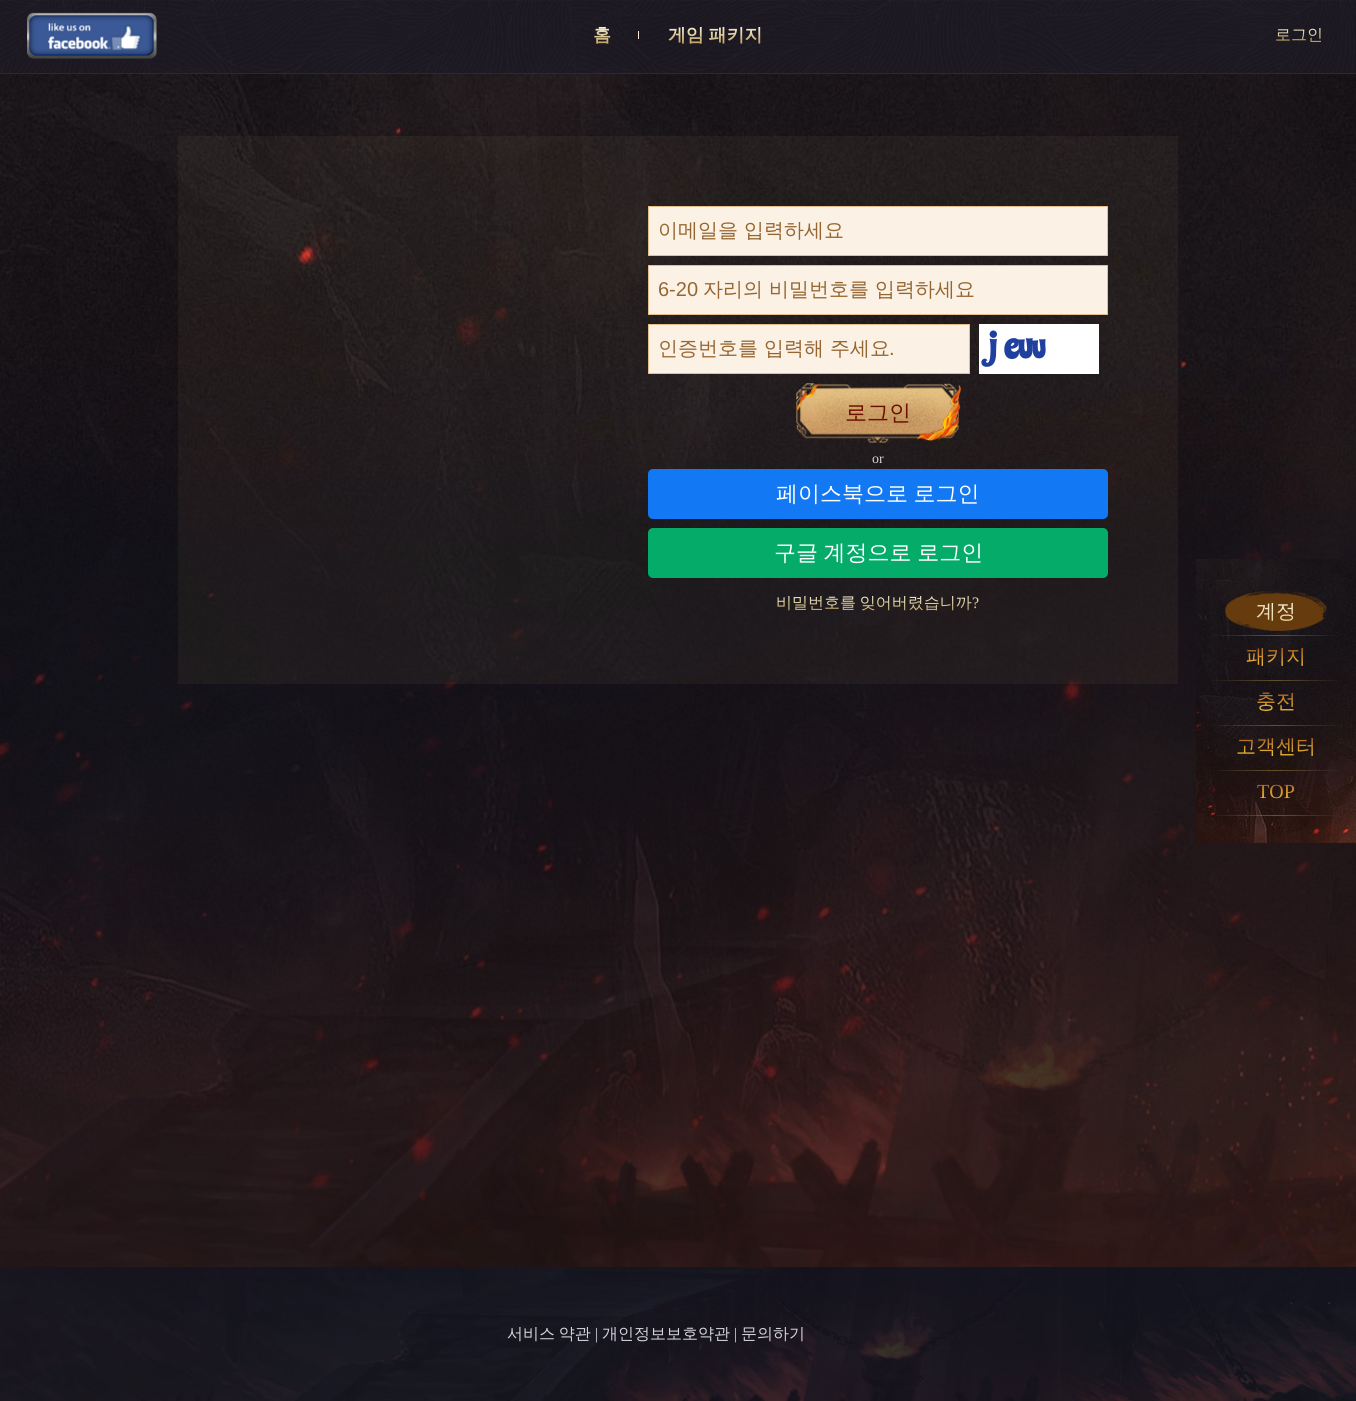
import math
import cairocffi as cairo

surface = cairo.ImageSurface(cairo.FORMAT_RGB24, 1356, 1401)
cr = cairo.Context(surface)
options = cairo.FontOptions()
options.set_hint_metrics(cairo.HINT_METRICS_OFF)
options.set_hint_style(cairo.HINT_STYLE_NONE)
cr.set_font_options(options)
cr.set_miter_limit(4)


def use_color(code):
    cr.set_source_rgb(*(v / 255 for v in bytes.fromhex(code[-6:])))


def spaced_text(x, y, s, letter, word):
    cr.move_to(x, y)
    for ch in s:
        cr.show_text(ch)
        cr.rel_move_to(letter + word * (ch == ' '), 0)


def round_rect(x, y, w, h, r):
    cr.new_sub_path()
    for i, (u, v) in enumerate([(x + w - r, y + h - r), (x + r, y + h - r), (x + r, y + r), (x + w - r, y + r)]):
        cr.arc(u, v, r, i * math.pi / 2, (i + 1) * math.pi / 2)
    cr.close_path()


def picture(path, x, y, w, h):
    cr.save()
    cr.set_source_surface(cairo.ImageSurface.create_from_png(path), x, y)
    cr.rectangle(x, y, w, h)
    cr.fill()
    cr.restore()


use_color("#ffffff")
cr.paint()
picture("img3.png", 0, 0, 1356, 1267)
picture("img1.png", 0, 0, 1356, 73)
use_color("#38281b")
cr.rectangle(0, 73, 1356, 1)
cr.fill()
picture("img2.png", 27, 12, 130, 47)
cr.select_font_face("WenQuanYi Zen Hei", cairo.FONT_SLANT_NORMAL, cairo.FONT_WEIGHT_BOLD)
cr.set_font_size(18)
gradient = cairo.LinearGradient(602, 25, 602, 45)
gradient.add_color_stop_rgba(0, 0.988, 0.973, 0.886, 1)
gradient.add_color_stop_rgba(1, 0.737, 0.62, 0.349, 1)
cr.set_source(gradient)
cr.move_to(593, 41)
cr.show_text("홈")
use_color("#f8ead6")
cr.rectangle(638, 31, 1, 8)
cr.fill()
gradient = cairo.LinearGradient(715, 25, 715, 45)
gradient.add_color_stop_rgba(0, 0.988, 0.973, 0.886, 1)
gradient.add_color_stop_rgba(1, 0.737, 0.62, 0.349, 1)
cr.set_source(gradient)
spaced_text(668, 41, "게임 패키지", 0, -1)
cr.select_font_face("WenQuanYi Zen Hei Medium")
cr.set_font_size(16)
gradient = cairo.LinearGradient(1299, 26, 1299, 43)
gradient.add_color_stop_rgba(0, 0.988, 0.973, 0.886, 1)
gradient.add_color_stop_rgba(1, 0.737, 0.62, 0.349, 1)
cr.set_source(gradient)
cr.move_to(1275, 40)
cr.show_text("로그인")
cr.set_source_rgba(0.98, 0.804, 0.537, 0.05)
cr.rectangle(178, 136, 1000, 548)
cr.fill()
use_color("#fbf2e5")
cr.rectangle(648.5, 206.5, 459, 49)
cr.fill_preserve()
use_color("#e6be8c")
cr.set_line_width(1)
cr.stroke()
cr.set_font_size(20)
use_color("#966632")
cr.move_to(658, 237)
cr.show_text("이메일을 입력하세요")
use_color("#fbf2e5")
cr.rectangle(648.5, 265.5, 459, 49)
cr.fill_preserve()
use_color("#e6be8c")
cr.stroke()
cr.select_font_face("Liberation Sans")
use_color("#966632")
cr.move_to(658, 296)
cr.show_text("6-20")
cr.select_font_face("WenQuanYi Zen Hei Medium")
cr.move_to(703, 296)
cr.show_text("자리의 비밀번호를 입력하세요")
use_color("#fbf2e5")
cr.rectangle(648.5, 324.5, 321, 49)
cr.fill_preserve()
use_color("#e6be8c")
cr.stroke()
use_color("#966632")
cr.move_to(658, 355)
cr.show_text("인증번호를 입력해 주세요")
cr.select_font_face("Liberation Sans")
cr.move_to(889, 355)
cr.show_text(".")
picture("img4.png", 979, 324, 120, 50)
picture("img5.png", 796, 383, 165, 60)
cr.select_font_face("WenQuanYi Zen Hei Medium")
cr.set_font_size(22)
use_color("#6e0e00")
cr.move_to(845, 420)
cr.show_text("로그인")
cr.select_font_face("Liberation Serif")
cr.set_font_size(14)
use_color("#d5d3de")
cr.move_to(872, 463)
cr.show_text("or")
use_color("#1278f4")
round_rect(648, 469, 460, 50, 5)
cr.fill()
cr.select_font_face("WenQuanYi Zen Hei Medium")
cr.set_font_size(22)
use_color("#ffffff")
spaced_text(776, 501, "페이스북으로 로그인", 0, -1)
use_color("#05ab69")
round_rect(648, 528, 460, 50, 5)
cr.fill()
use_color("#ffffff")
spaced_text(774, 560, "구글 계정으로 로그인", 0, -1)
cr.set_font_size(16)
gradient = cairo.LinearGradient(878, 593, 878, 614)
gradient.add_color_stop_rgba(0, 0.988, 0.973, 0.886, 1)
gradient.add_color_stop_rgba(1, 0.737, 0.62, 0.349, 1)
cr.set_source(gradient)
spaced_text(776, 608, "비밀번호를 잊어버렸습니까", 0, -1)
cr.select_font_face("Liberation Serif")
cr.move_to(972, 608)
cr.show_text("?")
picture("img6.png", 1196, 559, 160, 284)
picture("img7.png", 1225, 591, 102, 40)
cr.select_font_face("WenQuanYi Zen Hei Medium")
cr.set_font_size(20)
gradient = cairo.LinearGradient(1276, 600, 1276, 622)
gradient.add_color_stop_rgba(0, 0.988, 0.973, 0.886, 1)
gradient.add_color_stop_rgba(1, 0.894, 0.808, 0.612, 1)
cr.set_source(gradient)
cr.move_to(1256, 618)
cr.show_text("계정")
gradient = cairo.LinearGradient(1276, 645, 1276, 667)
gradient.add_color_stop_rgba(0, 0.635, 0.349, 0.133, 1)
gradient.add_color_stop_rgba(1, 0.961, 0.761, 0.224, 1)
cr.set_source(gradient)
cr.move_to(1246, 663)
cr.show_text("패키지")
gradient = cairo.LinearGradient(1276, 690, 1276, 712)
gradient.add_color_stop_rgba(0, 0.635, 0.349, 0.133, 1)
gradient.add_color_stop_rgba(1, 0.961, 0.761, 0.224, 1)
cr.set_source(gradient)
cr.move_to(1256, 708)
cr.show_text("충전")
gradient = cairo.LinearGradient(1276, 735, 1276, 757)
gradient.add_color_stop_rgba(0, 0.635, 0.349, 0.133, 1)
gradient.add_color_stop_rgba(1, 0.961, 0.761, 0.224, 1)
cr.set_source(gradient)
cr.move_to(1236, 753)
cr.show_text("고객센터")
cr.select_font_face("Liberation Serif")
gradient = cairo.LinearGradient(1276, 780, 1276, 802)
gradient.add_color_stop_rgba(0, 0.635, 0.349, 0.133, 1)
gradient.add_color_stop_rgba(1, 0.961, 0.761, 0.224, 1)
cr.set_source(gradient)
cr.move_to(1257, 798)
cr.show_text("TOP")
picture("img8.png", 0, 1267, 1356, 134)
cr.select_font_face("WenQuanYi Zen Hei Medium")
cr.set_font_size(16)
use_color("#d5d3de")
spaced_text(507, 1339, "서비스 약관", 0, -1)
cr.select_font_face("Liberation Serif")
cr.move_to(595, 1339)
cr.show_text("|")
cr.select_font_face("WenQuanYi Zen Hei Medium")
cr.move_to(602, 1339)
cr.show_text("개인정보보호약관")
cr.select_font_face("Liberation Serif")
cr.move_to(734, 1339)
cr.show_text("|")
cr.select_font_face("WenQuanYi Zen Hei Medium")
cr.move_to(741, 1339)
cr.show_text("문의하기")
surface.write_to_png("result.png")
